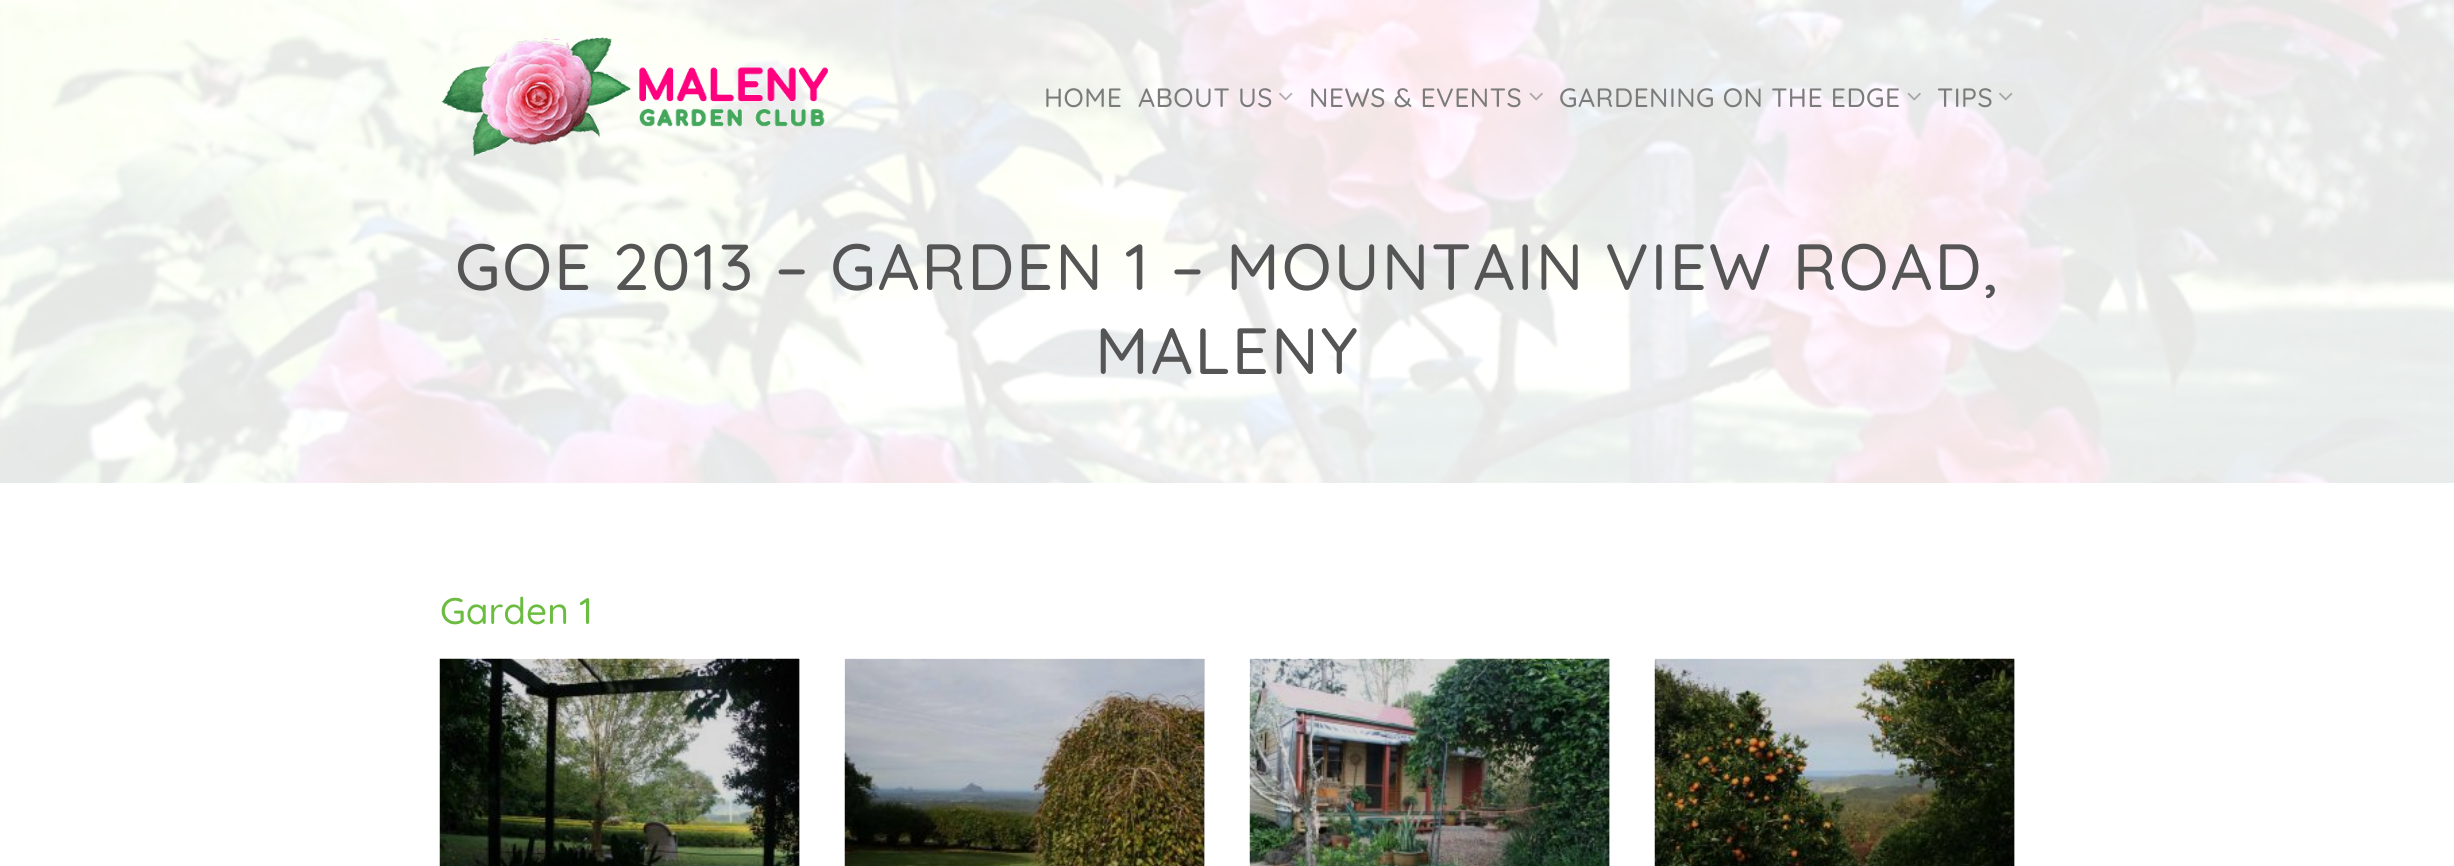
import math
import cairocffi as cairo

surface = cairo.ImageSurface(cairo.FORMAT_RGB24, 2454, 866)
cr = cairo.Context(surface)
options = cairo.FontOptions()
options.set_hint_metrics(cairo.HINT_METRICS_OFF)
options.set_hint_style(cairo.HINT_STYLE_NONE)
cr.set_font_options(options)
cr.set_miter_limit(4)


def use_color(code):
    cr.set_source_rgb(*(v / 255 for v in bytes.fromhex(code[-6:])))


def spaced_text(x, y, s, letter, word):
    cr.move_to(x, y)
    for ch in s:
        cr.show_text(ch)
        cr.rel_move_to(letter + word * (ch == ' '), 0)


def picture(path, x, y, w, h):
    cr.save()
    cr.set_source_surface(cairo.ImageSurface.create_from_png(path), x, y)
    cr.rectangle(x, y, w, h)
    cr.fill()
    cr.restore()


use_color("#ffffff")
cr.paint()
use_color("#d9d9d9")
cr.rectangle(2014, 659, 1, 207)
cr.fill()
cr.rectangle(1609, 659, 1, 207)
cr.fill()
cr.rectangle(1204, 659, 1, 207)
cr.fill()
cr.rectangle(799, 659, 1, 207)
cr.fill()
picture("img6.png", 0, 0, 2454, 483)
picture("img1.png", 441, 37, 387, 120)
cr.select_font_face("Quicksand Medium")
cr.set_font_size(26.5)
use_color("#7b7b7a")
spaced_text(1044, 107, "HOME", 0.5, 0)
spaced_text(1138, 107, "ABOUT US", 0.5, 0)
picture("img2.png", 1279, 92, 14, 9)
spaced_text(1309, 107, "NEWS & EVENTS", 0.5, 0)
picture("img3.png", 1529, 92, 14, 9)
spaced_text(1559, 107, "GARDENING ON THE EDGE", 0.5, 0)
picture("img4.png", 1907, 92, 14, 9)
spaced_text(1937, 107, "TIPS", 0.5, 0)
picture("img5.png", 1999, 92, 14, 9)
cr.set_font_size(65.25)
use_color("#555555")
spaced_text(455, 290, "GOE 2013 – GARDEN 1 – MOUNTAIN VIEW ROAD,", 1.9, 0)
spaced_text(1095, 374, "MALENY", 1.9, 0)
cr.set_font_size(37)
use_color("#6bbc41")
cr.move_to(440, 624)
cr.show_text("Garden 1")
picture("img7.png", 439, 658, 361, 208)
picture("img8.png", 844, 658, 361, 208)
picture("img9.png", 1249, 658, 361, 208)
picture("img10.png", 1654, 658, 361, 208)
surface.write_to_png("result.png")
